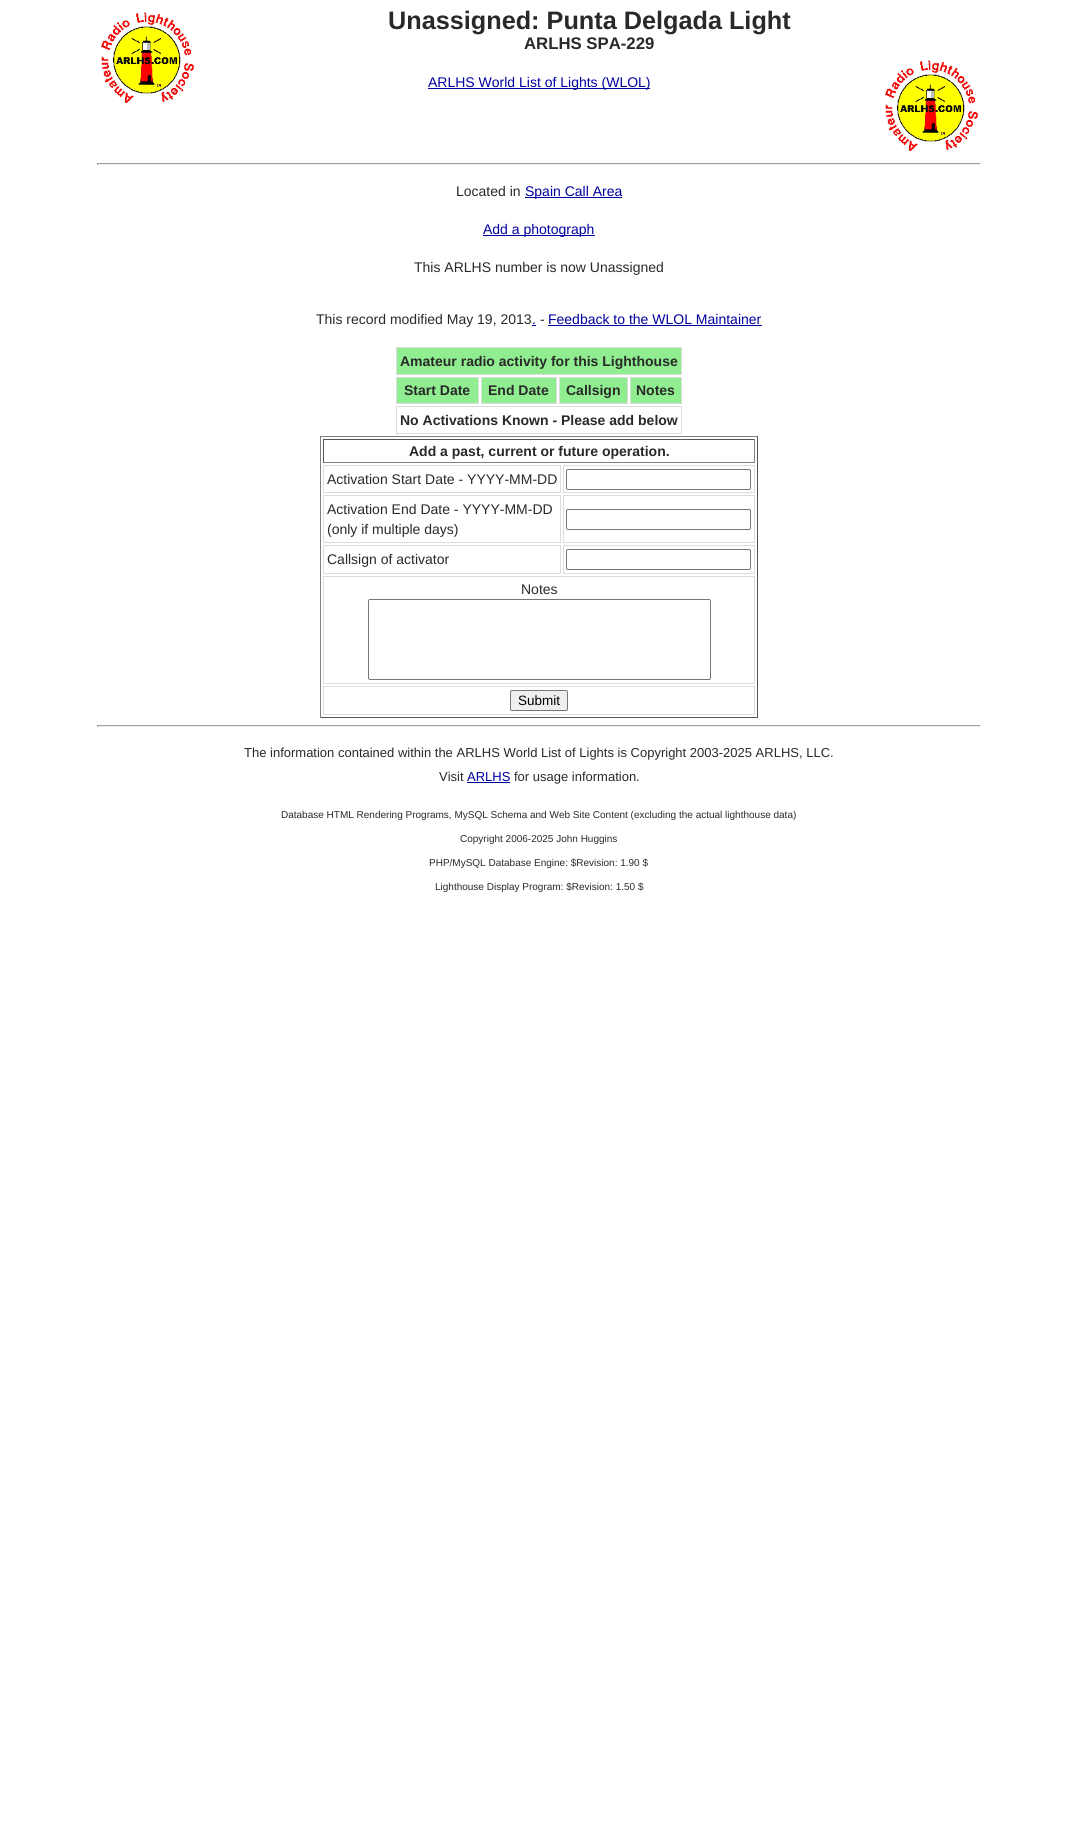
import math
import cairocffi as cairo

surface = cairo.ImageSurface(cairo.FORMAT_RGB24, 1078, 1847)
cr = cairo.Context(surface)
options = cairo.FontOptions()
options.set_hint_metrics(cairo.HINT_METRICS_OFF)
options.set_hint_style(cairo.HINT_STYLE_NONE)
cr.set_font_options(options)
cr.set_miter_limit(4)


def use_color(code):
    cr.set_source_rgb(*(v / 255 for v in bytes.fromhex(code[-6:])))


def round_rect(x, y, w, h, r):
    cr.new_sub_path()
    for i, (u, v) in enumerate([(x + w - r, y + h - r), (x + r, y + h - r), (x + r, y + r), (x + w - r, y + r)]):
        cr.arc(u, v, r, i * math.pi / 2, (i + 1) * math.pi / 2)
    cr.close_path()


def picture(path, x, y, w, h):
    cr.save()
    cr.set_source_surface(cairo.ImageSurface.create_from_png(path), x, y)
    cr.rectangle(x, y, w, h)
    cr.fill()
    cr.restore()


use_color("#ffffff")
cr.paint()
picture("img1.png", 100, 11, 94, 93)
cr.select_font_face("Liberation Sans", cairo.FONT_SLANT_NORMAL, cairo.FONT_WEIGHT_BOLD)
cr.set_font_size(25.25)
use_color("#292929")
cr.move_to(388, 29)
cr.show_text("Unassigned: Punta Delgada Light")
cr.set_font_size(16.75)
cr.move_to(524, 49)
cr.show_text("ARLHS SPA-229")
picture("img1.png", 884, 59, 94, 93)
use_color("#0000a0")
cr.rectangle(428, 88, 222, 1)
cr.fill()
cr.select_font_face("Liberation Sans")
cr.set_font_size(14)
cr.move_to(428, 87)
cr.show_text("ARLHS World List of Lights (WLOL)")
use_color("#9f9f9f")
cr.rectangle(97, 163, 884, 1)
cr.fill()
use_color("#eeeeee")
cr.rectangle(980, 163, 1, 2)
cr.fill()
cr.rectangle(97, 164, 884, 1)
cr.fill()
use_color("#9f9f9f")
cr.rectangle(97, 163, 1, 2)
cr.fill()
use_color("#292929")
cr.move_to(456, 196)
cr.show_text("Located in")
use_color("#0000a0")
cr.rectangle(525, 197, 97, 1)
cr.fill()
cr.move_to(525, 196)
cr.show_text("Spain Call Area")
cr.rectangle(483, 235, 112, 1)
cr.fill()
cr.move_to(483, 234)
cr.show_text("Add a photograph")
use_color("#292929")
cr.move_to(414, 272)
cr.show_text("This ARLHS number is now Unassigned")
cr.move_to(316, 324)
cr.show_text("This record modified May 19, 2013")
cr.move_to(540, 324)
cr.show_text("-")
use_color("#0000a0")
cr.move_to(548, 324)
cr.show_text("Feedback to the WLOL Maintainer")
cr.rectangle(548, 325, 214, 1)
cr.fill()
cr.move_to(532, 324)
cr.show_text(".")
cr.rectangle(532, 325, 4, 1)
cr.fill()
use_color("#90ee90")
cr.rectangle(396.5, 347.5, 285, 27)
cr.fill_preserve()
use_color("#dcdcdc")
cr.set_line_width(1)
cr.stroke()
cr.select_font_face("Liberation Sans", cairo.FONT_SLANT_NORMAL, cairo.FONT_WEIGHT_BOLD)
use_color("#292929")
cr.move_to(400, 366)
cr.show_text("Amateur radio activity for this Lighthouse")
use_color("#90ee90")
cr.rectangle(396.5, 377.5, 82, 26)
cr.fill_preserve()
use_color("#dcdcdc")
cr.stroke()
use_color("#292929")
cr.move_to(404, 395)
cr.show_text("Start Date")
use_color("#90ee90")
cr.rectangle(481.5, 377.5, 75, 26)
cr.fill_preserve()
use_color("#dcdcdc")
cr.stroke()
use_color("#292929")
cr.move_to(488, 395)
cr.show_text("End Date")
use_color("#90ee90")
cr.rectangle(559.5, 377.5, 68, 26)
cr.fill_preserve()
use_color("#dcdcdc")
cr.stroke()
use_color("#292929")
cr.move_to(566, 395)
cr.show_text("Callsign")
use_color("#90ee90")
cr.rectangle(630.5, 377.5, 51, 26)
cr.fill_preserve()
use_color("#dcdcdc")
cr.stroke()
use_color("#292929")
cr.move_to(636, 395)
cr.show_text("Notes")
cr.rectangle(396.5, 406.5, 285, 27)
use_color("#dcdcdc")
cr.stroke()
use_color("#292929")
cr.move_to(400, 425)
cr.show_text("No Activations Known - Please add below")
use_color("#808080")
cr.rectangle(320, 436, 438, 1)
cr.fill()
use_color("#555555")
cr.rectangle(757, 436, 1, 282)
cr.fill()
cr.rectangle(320, 717, 438, 1)
cr.fill()
use_color("#808080")
cr.rectangle(320, 436, 1, 282)
cr.fill()
use_color("#555555")
cr.rectangle(323, 439, 432, 1)
cr.fill()
use_color("#808080")
cr.rectangle(754, 439, 1, 24)
cr.fill()
cr.rectangle(323, 462, 432, 1)
cr.fill()
use_color("#555555")
cr.rectangle(323, 439, 1, 24)
cr.fill()
use_color("#292929")
cr.move_to(409, 456)
cr.show_text("Add a past, current or future operation.")
cr.rectangle(323.5, 465.5, 237, 27)
use_color("#dcdcdc")
cr.stroke()
cr.select_font_face("Liberation Sans")
use_color("#292929")
cr.move_to(327, 484)
cr.show_text("Activation Start Date - YYYY-MM-DD")
cr.rectangle(563.5, 465.5, 191, 27)
use_color("#dcdcdc")
cr.stroke()
round_rect(566.5, 469.5, 184, 20, 1.5)
use_color("#767676")
cr.stroke()
cr.rectangle(323.5, 495.5, 237, 47)
use_color("#dcdcdc")
cr.stroke()
use_color("#292929")
cr.move_to(327, 514)
cr.show_text("Activation End Date - YYYY-MM-DD")
cr.move_to(327, 534)
cr.show_text("(only if multiple days)")
cr.rectangle(563.5, 495.5, 191, 47)
use_color("#dcdcdc")
cr.stroke()
round_rect(566.5, 509.5, 184, 20, 1.5)
use_color("#767676")
cr.stroke()
cr.rectangle(323.5, 545.5, 237, 28)
use_color("#dcdcdc")
cr.stroke()
use_color("#292929")
cr.move_to(327, 564)
cr.show_text("Callsign of activator")
cr.rectangle(563.5, 545.5, 191, 28)
use_color("#dcdcdc")
cr.stroke()
round_rect(566.5, 549.5, 184, 20, 1.5)
use_color("#767676")
cr.stroke()
cr.rectangle(323.5, 576.5, 431, 107)
use_color("#dcdcdc")
cr.stroke()
use_color("#292929")
cr.move_to(521, 594)
cr.show_text("Notes")
round_rect(368.5, 599.5, 342, 80, 1.5)
use_color("#767676")
cr.stroke()
cr.rectangle(323.5, 686.5, 431, 28)
use_color("#dcdcdc")
cr.stroke()
use_color("#efefef")
round_rect(510.5, 690.5, 57, 20, 1.5)
cr.fill_preserve()
use_color("#767676")
cr.stroke()
cr.set_font_size(13.5)
use_color("#000000")
cr.move_to(518, 705)
cr.show_text("Submit")
use_color("#9f9f9f")
cr.rectangle(97, 725, 884, 1)
cr.fill()
use_color("#eeeeee")
cr.rectangle(980, 725, 1, 2)
cr.fill()
cr.rectangle(97, 726, 884, 1)
cr.fill()
use_color("#9f9f9f")
cr.rectangle(97, 725, 1, 2)
cr.fill()
cr.set_font_size(13)
use_color("#292929")
cr.move_to(244, 757)
cr.show_text("The information contained within the ARLHS World List of Lights is Copyright 2003-2025 ARLHS, LLC.")
cr.move_to(439, 781)
cr.show_text("Visit")
use_color("#0000a0")
cr.move_to(467, 781)
cr.show_text("ARLHS")
cr.rectangle(467, 782, 43, 1)
cr.fill()
use_color("#292929")
cr.move_to(514, 781)
cr.show_text("for usage information.")
cr.set_font_size(10)
cr.move_to(281, 818)
cr.show_text("Database HTML Rendering Programs, MySQL Schema and Web Site Content (excluding the actual lighthouse data)")
cr.move_to(460, 842)
cr.show_text("Copyright 2006-2025 John Huggins")
cr.move_to(429, 866)
cr.show_text("PHP/MySQL Database Engine: $Revision: 1.90 $")
cr.move_to(435, 890)
cr.show_text("Lighthouse Display Program: $Revision: 1.50 $")
surface.write_to_png("result.png")
